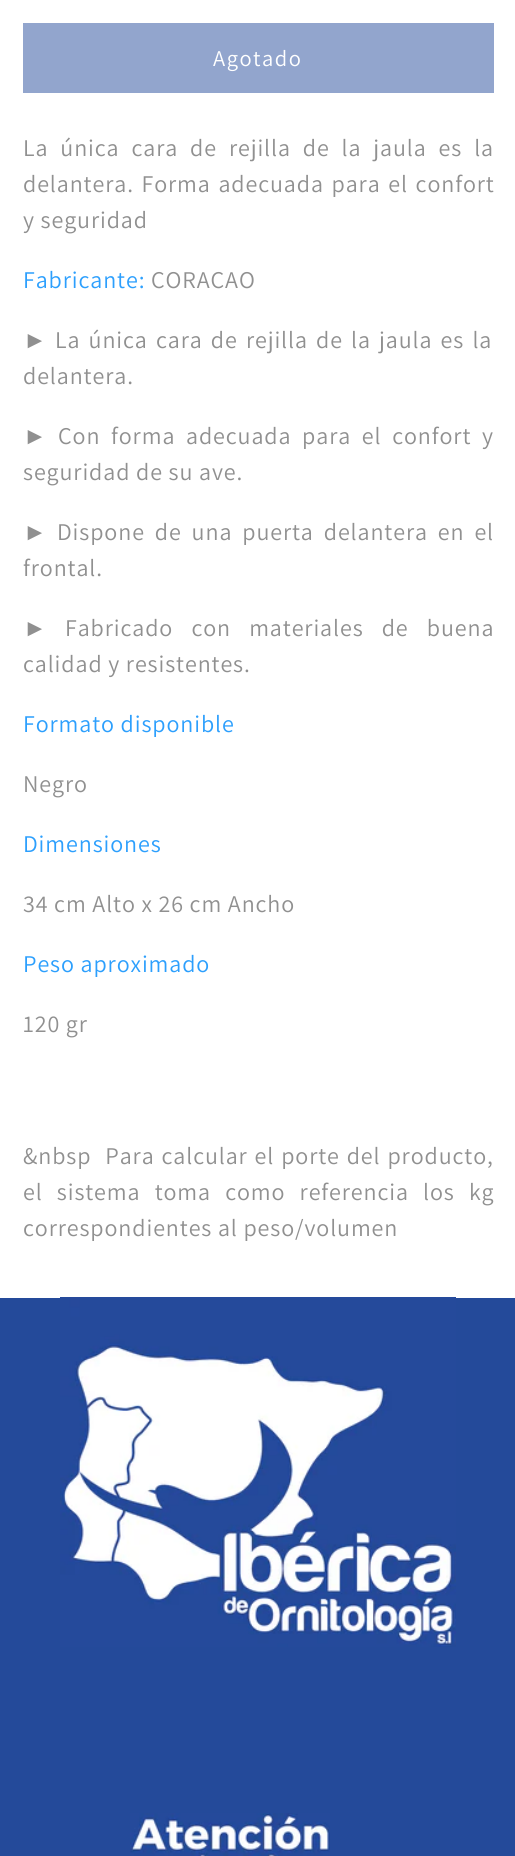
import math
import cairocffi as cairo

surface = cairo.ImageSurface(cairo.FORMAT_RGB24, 515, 1856)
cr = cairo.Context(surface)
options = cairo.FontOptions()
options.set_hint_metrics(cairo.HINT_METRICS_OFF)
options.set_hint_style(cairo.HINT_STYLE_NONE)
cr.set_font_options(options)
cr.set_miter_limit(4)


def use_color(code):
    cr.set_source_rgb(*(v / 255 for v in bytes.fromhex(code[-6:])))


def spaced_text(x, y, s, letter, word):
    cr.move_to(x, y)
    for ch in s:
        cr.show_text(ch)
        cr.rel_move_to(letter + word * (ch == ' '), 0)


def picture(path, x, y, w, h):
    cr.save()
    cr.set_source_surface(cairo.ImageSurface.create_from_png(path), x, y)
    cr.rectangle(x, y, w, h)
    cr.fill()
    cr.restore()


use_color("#ffffff")
cr.paint()
use_color("#92a5cd")
cr.rectangle(23, 23, 471, 70)
cr.fill()
cr.select_font_face("Assistant")
cr.set_font_size(22.5)
use_color("#ffffff")
spaced_text(213, 66, "Agotado", 1.5, 0)
cr.set_font_size(24)
use_color("#909090")
spaced_text(23, 156, "La única cara de rejilla de la jaula es la", 0.9, 6.25)
spaced_text(23, 192, "delantera. Forma adecuada para el confort", 0.9, 2)
spaced_text(23, 228, "y seguridad", 0.9, 0)
use_color("#2c9ffd")
spaced_text(23, 288, "Fabricante:", 0.9, 0)
use_color("#909090")
spaced_text(151, 288, "CORAÇAO", 0.9, 0)
cr.select_font_face("Liberation Sans")
spaced_text(23, 348, "►", 0.9, 0)
cr.select_font_face("Assistant")
spaced_text(55, 348, "La única cara de rejilla de la jaula es la", 0.9, 2.5)
spaced_text(23, 384, "delantera.", 0.9, 0)
cr.select_font_face("Liberation Sans")
spaced_text(23, 444, "►", 0.9, 0)
cr.select_font_face("Assistant")
spaced_text(58, 444, "Con forma adecuada para el confort y", 0.9, 5)
spaced_text(23, 480, "seguridad de su ave.", 0.9, 0)
cr.select_font_face("Liberation Sans")
spaced_text(23, 540, "►", 0.9, 0)
cr.select_font_face("Assistant")
spaced_text(57, 540, "Dispone de una puerta delantera en el", 0.9, 4.25)
spaced_text(23, 576, "frontal.", 0.9, 0)
cr.select_font_face("Liberation Sans")
spaced_text(23, 636, "►", 0.9, 0)
cr.select_font_face("Assistant")
spaced_text(65, 636, "Fabricado con materiales de buena", 0.9, 12.5)
spaced_text(23, 672, "calidad y resistentes.", 0.9, 0)
use_color("#2c9ffd")
spaced_text(23, 732, "Formato disponible", 0.9, 0)
use_color("#909090")
spaced_text(23, 792, "Negro", 0.9, 0)
use_color("#2c9ffd")
spaced_text(23, 852, "Dimensiones", 0.9, 0)
use_color("#909090")
spaced_text(23, 912, "34 cm Alto x 26 cm Ancho", 0.9, 0)
use_color("#2c9ffd")
spaced_text(23, 972, "Peso aproximado", 0.9, 0)
use_color("#909090")
spaced_text(23, 1032, "120 gr", 0.9, 0)
spaced_text(23, 1164, "&nbsp  Para calcular el porte del producto,", 0.9, 1.25)
spaced_text(23, 1200, "el sistema toma como referencia los kg", 0.9, 8.5)
spaced_text(23, 1236, "correspondientes al peso/volumen", 0.9, 0)
use_color("#244a9a")
cr.rectangle(0, 1298, 515, 558)
cr.fill()
picture("img1.png", 60, 1297, 396, 350)
picture("img2.png", 130, 1813, 200, 43)
surface.write_to_png("result.png")
